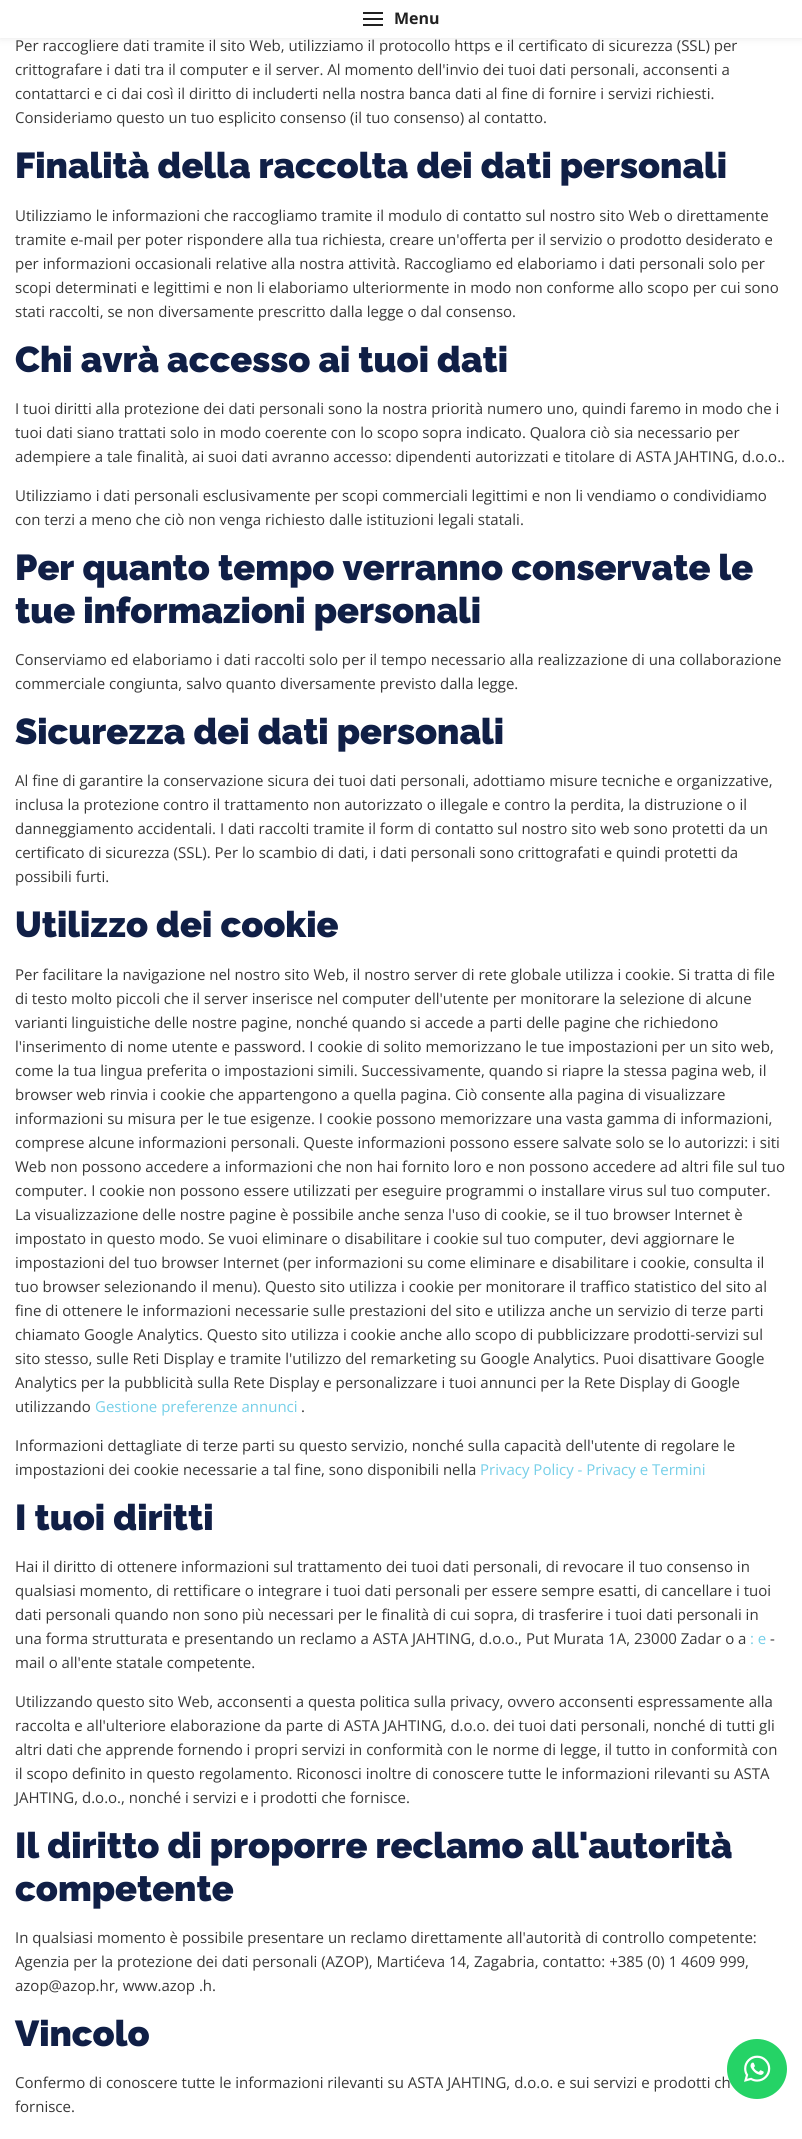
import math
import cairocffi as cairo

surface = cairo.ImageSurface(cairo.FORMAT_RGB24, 802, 2139)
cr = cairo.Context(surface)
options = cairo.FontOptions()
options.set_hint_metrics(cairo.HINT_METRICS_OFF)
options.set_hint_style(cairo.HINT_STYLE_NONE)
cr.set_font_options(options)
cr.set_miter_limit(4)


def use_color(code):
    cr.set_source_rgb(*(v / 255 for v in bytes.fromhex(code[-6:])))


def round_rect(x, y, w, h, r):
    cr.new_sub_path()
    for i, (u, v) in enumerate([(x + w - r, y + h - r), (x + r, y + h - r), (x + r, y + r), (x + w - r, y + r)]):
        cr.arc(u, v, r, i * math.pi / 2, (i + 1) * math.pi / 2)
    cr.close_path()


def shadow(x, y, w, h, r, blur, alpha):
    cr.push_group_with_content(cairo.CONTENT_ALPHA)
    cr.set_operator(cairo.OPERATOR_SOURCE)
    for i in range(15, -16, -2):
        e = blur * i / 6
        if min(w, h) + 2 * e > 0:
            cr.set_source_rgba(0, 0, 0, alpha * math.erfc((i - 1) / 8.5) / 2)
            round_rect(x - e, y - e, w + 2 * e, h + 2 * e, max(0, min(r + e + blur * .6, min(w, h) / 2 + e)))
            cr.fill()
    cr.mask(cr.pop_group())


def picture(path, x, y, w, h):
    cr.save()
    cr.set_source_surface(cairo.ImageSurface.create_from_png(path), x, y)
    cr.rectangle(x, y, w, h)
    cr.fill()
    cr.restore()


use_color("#ffffff")
cr.paint()
use_color("#000000")
shadow(0, -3, 802, 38, 0, 5, 0.2)
use_color("#ffffff")
cr.rectangle(0, 0, 802, 38)
cr.fill()
use_color("#212121")
cr.rectangle(363, 18, 20, 2)
cr.fill()
cr.rectangle(363, 12, 20, 2)
cr.fill()
cr.rectangle(363, 24, 20, 2)
cr.fill()
cr.select_font_face("Open Sans", cairo.FONT_SLANT_NORMAL, cairo.FONT_WEIGHT_BOLD)
cr.set_font_size(16)
cr.move_to(394, 24)
cr.show_text("Menu")
cr.select_font_face("Open Sans")
cr.set_font_size(15)
use_color("#383838")
cr.move_to(15, 51)
cr.show_text("Per raccogliere dati tramite il sito Web, utilizziamo il protocollo https e il certificato di sicurezza (SSL) per")
cr.move_to(15, 75)
cr.show_text("crittografare i dati tra il computer e il server. Al momento dell'invio dei tuoi dati personali, acconsenti a")
cr.move_to(15, 99)
cr.show_text("contattarci e ci dai così il diritto di includerti nella nostra banca dati al fine di fornire i servizi richiesti.")
cr.move_to(15, 123)
cr.show_text("Consideriamo questo un tuo esplicito consenso (il tuo consenso) al contatto.")
cr.select_font_face("Raleway Black")
cr.set_font_size(36)
use_color("#101f46")
cr.move_to(15, 178)
cr.show_text("Finalità della raccolta dei dati personali")
cr.select_font_face("Open Sans")
cr.set_font_size(15)
use_color("#383838")
cr.move_to(15, 221)
cr.show_text("Utilizziamo le informazioni che raccogliamo tramite il modulo di contatto sul nostro sito Web o direttamente")
cr.move_to(15, 245)
cr.show_text("tramite e-mail per poter rispondere alla tua richiesta, creare un'offerta per il servizio o prodotto desiderato e")
cr.move_to(15, 269)
cr.show_text("per informazioni occasionali relative alla nostra attività. Raccogliamo ed elaboriamo i dati personali solo per")
cr.move_to(15, 293)
cr.show_text("scopi determinati e legittimi e non li elaboriamo ulteriormente in modo non conforme allo scopo per cui sono")
cr.move_to(15, 317)
cr.show_text("stati raccolti, se non diversamente prescritto dalla legge o dal consenso.")
cr.select_font_face("Raleway Black")
cr.set_font_size(36)
use_color("#101f46")
cr.move_to(15, 372)
cr.show_text("Chi avrà accesso ai tuoi dati")
cr.select_font_face("Open Sans")
cr.set_font_size(15)
use_color("#383838")
cr.move_to(15, 414)
cr.show_text("I tuoi diritti alla protezione dei dati personali sono la nostra priorità numero uno, quindi faremo in modo che i")
cr.move_to(15, 438)
cr.show_text("tuoi dati siano trattati solo in modo coerente con lo scopo sopra indicato. Qualora ciò sia necessario per")
cr.move_to(15, 462)
cr.show_text("adempiere a tale finalità, ai suoi dati avranno accesso: dipendenti autorizzati e titolare di ASTA JAHTING, d.o.o..")
cr.move_to(15, 501)
cr.show_text("Utilizziamo i dati personali esclusivamente per scopi commerciali legittimi e non li vendiamo o condividiamo")
cr.move_to(15, 525)
cr.show_text("con terzi a meno che ciò non venga richiesto dalle istituzioni legali statali.")
cr.select_font_face("Raleway Black")
cr.set_font_size(36)
use_color("#101f46")
cr.move_to(15, 580)
cr.show_text("Per quanto tempo verranno conservate le")
cr.move_to(15, 623)
cr.show_text("tue informazioni personali")
cr.select_font_face("Open Sans")
cr.set_font_size(15)
use_color("#383838")
cr.move_to(15, 665)
cr.show_text("Conserviamo ed elaboriamo i dati raccolti solo per il tempo necessario alla realizzazione di una collaborazione")
cr.move_to(15, 689)
cr.show_text("commerciale congiunta, salvo quanto diversamente previsto dalla legge.")
cr.select_font_face("Raleway Black")
cr.set_font_size(36)
use_color("#101f46")
cr.move_to(15, 744)
cr.show_text("Sicurezza dei dati personali")
cr.select_font_face("Open Sans")
cr.set_font_size(15)
use_color("#383838")
cr.move_to(15, 786)
cr.show_text("Al fine di garantire la conservazione sicura dei tuoi dati personali, adottiamo misure tecniche e organizzative,")
cr.move_to(15, 810)
cr.show_text("inclusa la protezione contro il trattamento non autorizzato o illegale e contro la perdita, la distruzione o il")
cr.move_to(15, 834)
cr.show_text("danneggiamento accidentali. I dati raccolti tramite il form di contatto sul nostro sito web sono protetti da un")
cr.move_to(15, 858)
cr.show_text("certificato di sicurezza (SSL). Per lo scambio di dati, i dati personali sono crittografati e quindi protetti da")
cr.move_to(15, 882)
cr.show_text("possibili furti.")
cr.select_font_face("Raleway Black")
cr.set_font_size(36)
use_color("#101f46")
cr.move_to(15, 937)
cr.show_text("Utilizzo dei cookie")
cr.select_font_face("Open Sans")
cr.set_font_size(15)
use_color("#383838")
cr.move_to(15, 980)
cr.show_text("Per facilitare la navigazione nel nostro sito Web, il nostro server di rete globale utilizza i cookie. Si tratta di file")
cr.move_to(15, 1004)
cr.show_text("di testo molto piccoli che il server inserisce nel computer dell'utente per monitorare la selezione di alcune")
cr.move_to(15, 1028)
cr.show_text("varianti linguistiche delle nostre pagine, nonché quando si accede a parti delle pagine che richiedono")
cr.move_to(15, 1052)
cr.show_text("l'inserimento di nome utente e password. I cookie di solito memorizzano le tue impostazioni per un sito web,")
cr.move_to(15, 1076)
cr.show_text("come la tua lingua preferita o impostazioni simili. Successivamente, quando si riapre la stessa pagina web, il")
cr.move_to(15, 1100)
cr.show_text("browser web rinvia i cookie che appartengono a quella pagina. Ciò consente alla pagina di visualizzare")
cr.move_to(15, 1124)
cr.show_text("informazioni su misura per le tue esigenze. I cookie possono memorizzare una vasta gamma di informazioni,")
cr.move_to(15, 1148)
cr.show_text("comprese alcune informazioni personali. Queste informazioni possono essere salvate solo se lo autorizzi: i siti")
cr.move_to(15, 1172)
cr.show_text("Web non possono accedere a informazioni che non hai fornito loro e non possono accedere ad altri file sul tuo")
cr.move_to(15, 1196)
cr.show_text("computer. I cookie non possono essere utilizzati per eseguire programmi o installare virus sul tuo computer.")
cr.move_to(15, 1220)
cr.show_text("La visualizzazione delle nostre pagine è possibile anche senza l'uso di cookie, se il tuo browser Internet è")
cr.move_to(15, 1244)
cr.show_text("impostato in questo modo. Se vuoi eliminare o disabilitare i cookie sul tuo computer, devi aggiornare le")
cr.move_to(15, 1268)
cr.show_text("impostazioni del tuo browser Internet (per informazioni su come eliminare e disabilitare i cookie, consulta il")
cr.move_to(15, 1292)
cr.show_text("tuo browser selezionando il menu). Questo sito utilizza i cookie per monitorare il traffico statistico del sito al")
cr.move_to(15, 1316)
cr.show_text("fine di ottenere le informazioni necessarie sulle prestazioni del sito e utilizza anche un servizio di terze parti")
cr.move_to(15, 1340)
cr.show_text("chiamato Google Analytics. Questo sito utilizza i cookie anche allo scopo di pubblicizzare prodotti-servizi sul")
cr.move_to(15, 1364)
cr.show_text("sito stesso, sulle Reti Display e tramite l'utilizzo del remarketing su Google Analytics. Puoi disattivare Google")
cr.move_to(15, 1388)
cr.show_text("Analytics per la pubblicità sulla Rete Display e personalizzare i tuoi annunci per la Rete Display di Google")
cr.move_to(15, 1412)
cr.show_text("utilizzando")
use_color("#75cfe8")
cr.move_to(95, 1412)
cr.show_text("Gestione preferenze annunci")
use_color("#383838")
cr.move_to(301, 1412)
cr.show_text(".")
cr.move_to(15, 1451)
cr.show_text("Informazioni dettagliate di terze parti su questo servizio, nonché sulla capacità dell'utente di regolare le")
cr.move_to(15, 1475)
cr.show_text("impostazioni dei cookie necessarie a tal fine, sono disponibili nella")
use_color("#75cfe8")
cr.move_to(480, 1475)
cr.show_text("Privacy Policy - Privacy e Termini")
cr.select_font_face("Raleway Black")
cr.set_font_size(36)
use_color("#101f46")
cr.move_to(15, 1530)
cr.show_text("I tuoi diritti")
cr.select_font_face("Open Sans")
cr.set_font_size(15)
use_color("#383838")
cr.move_to(15, 1572)
cr.show_text("Hai il diritto di ottenere informazioni sul trattamento dei tuoi dati personali, di revocare il tuo consenso in")
cr.move_to(15, 1596)
cr.show_text("qualsiasi momento, di rettificare o integrare i tuoi dati personali per essere sempre esatti, di cancellare i tuoi")
cr.move_to(15, 1620)
cr.show_text("dati personali quando non sono più necessari per le finalità di cui sopra, di trasferire i tuoi dati personali in")
cr.move_to(15, 1644)
cr.show_text("una forma strutturata e presentando un reclamo a ASTA JAHTING, d.o.o., Put Murata 1A, 23000 Zadar o a")
use_color("#75cfe8")
cr.move_to(750, 1644)
cr.show_text(": e")
use_color("#383838")
cr.move_to(770, 1644)
cr.show_text("-")
cr.move_to(15, 1668)
cr.show_text("mail o all'ente statale competente.")
cr.move_to(15, 1707)
cr.show_text("Utilizzando questo sito Web, acconsenti a questa politica sulla privacy, ovvero acconsenti espressamente alla")
cr.move_to(15, 1731)
cr.show_text("raccolta e all'ulteriore elaborazione da parte di ASTA JAHTING, d.o.o. dei tuoi dati personali, nonché di tutti gli")
cr.move_to(15, 1755)
cr.show_text("altri dati che apprende fornendo i propri servizi in conformità con le norme di legge, il tutto in conformità con")
cr.move_to(15, 1779)
cr.show_text("il scopo definito in questo regolamento. Riconosci inoltre di conoscere tutte le informazioni rilevanti su ASTA")
cr.move_to(15, 1803)
cr.show_text("JAHTING, d.o.o., nonché i servizi e i prodotti che fornisce.")
cr.select_font_face("Raleway Black")
cr.set_font_size(36)
use_color("#101f46")
cr.move_to(15, 1858)
cr.show_text("Il diritto di proporre reclamo all'autorità")
cr.move_to(15, 1901)
cr.show_text("competente")
cr.select_font_face("Open Sans")
cr.set_font_size(15)
use_color("#383838")
cr.move_to(15, 1943)
cr.show_text("In qualsiasi momento è possibile presentare un reclamo direttamente all'autorità di controllo competente:")
cr.move_to(15, 1967)
cr.show_text("Agenzia per la protezione dei dati personali (AZOP), Martićeva 14, Zagabria, contatto: +385 (0) 1 4609 999,")
cr.move_to(15, 1991)
cr.show_text("azop@azop.hr, www.azop .h.")
cr.select_font_face("Raleway Black")
cr.set_font_size(36)
use_color("#101f46")
cr.move_to(15, 2046)
cr.show_text("Vincolo")
cr.select_font_face("Open Sans")
cr.set_font_size(15)
use_color("#383838")
cr.move_to(15, 2088)
cr.show_text("Confermo di conoscere tutte le informazioni rilevanti su ASTA JAHTING, d.o.o. e sui servizi e prodotti ch")
cr.move_to(15, 2112)
cr.show_text("fornisce.")
use_color("#25d366")
cr.new_path()
cr.arc(757, 2069, 30, 0, 2 * math.pi)
cr.fill()
picture("img1.png", 744, 2055, 27, 27)
surface.write_to_png("result.png")
